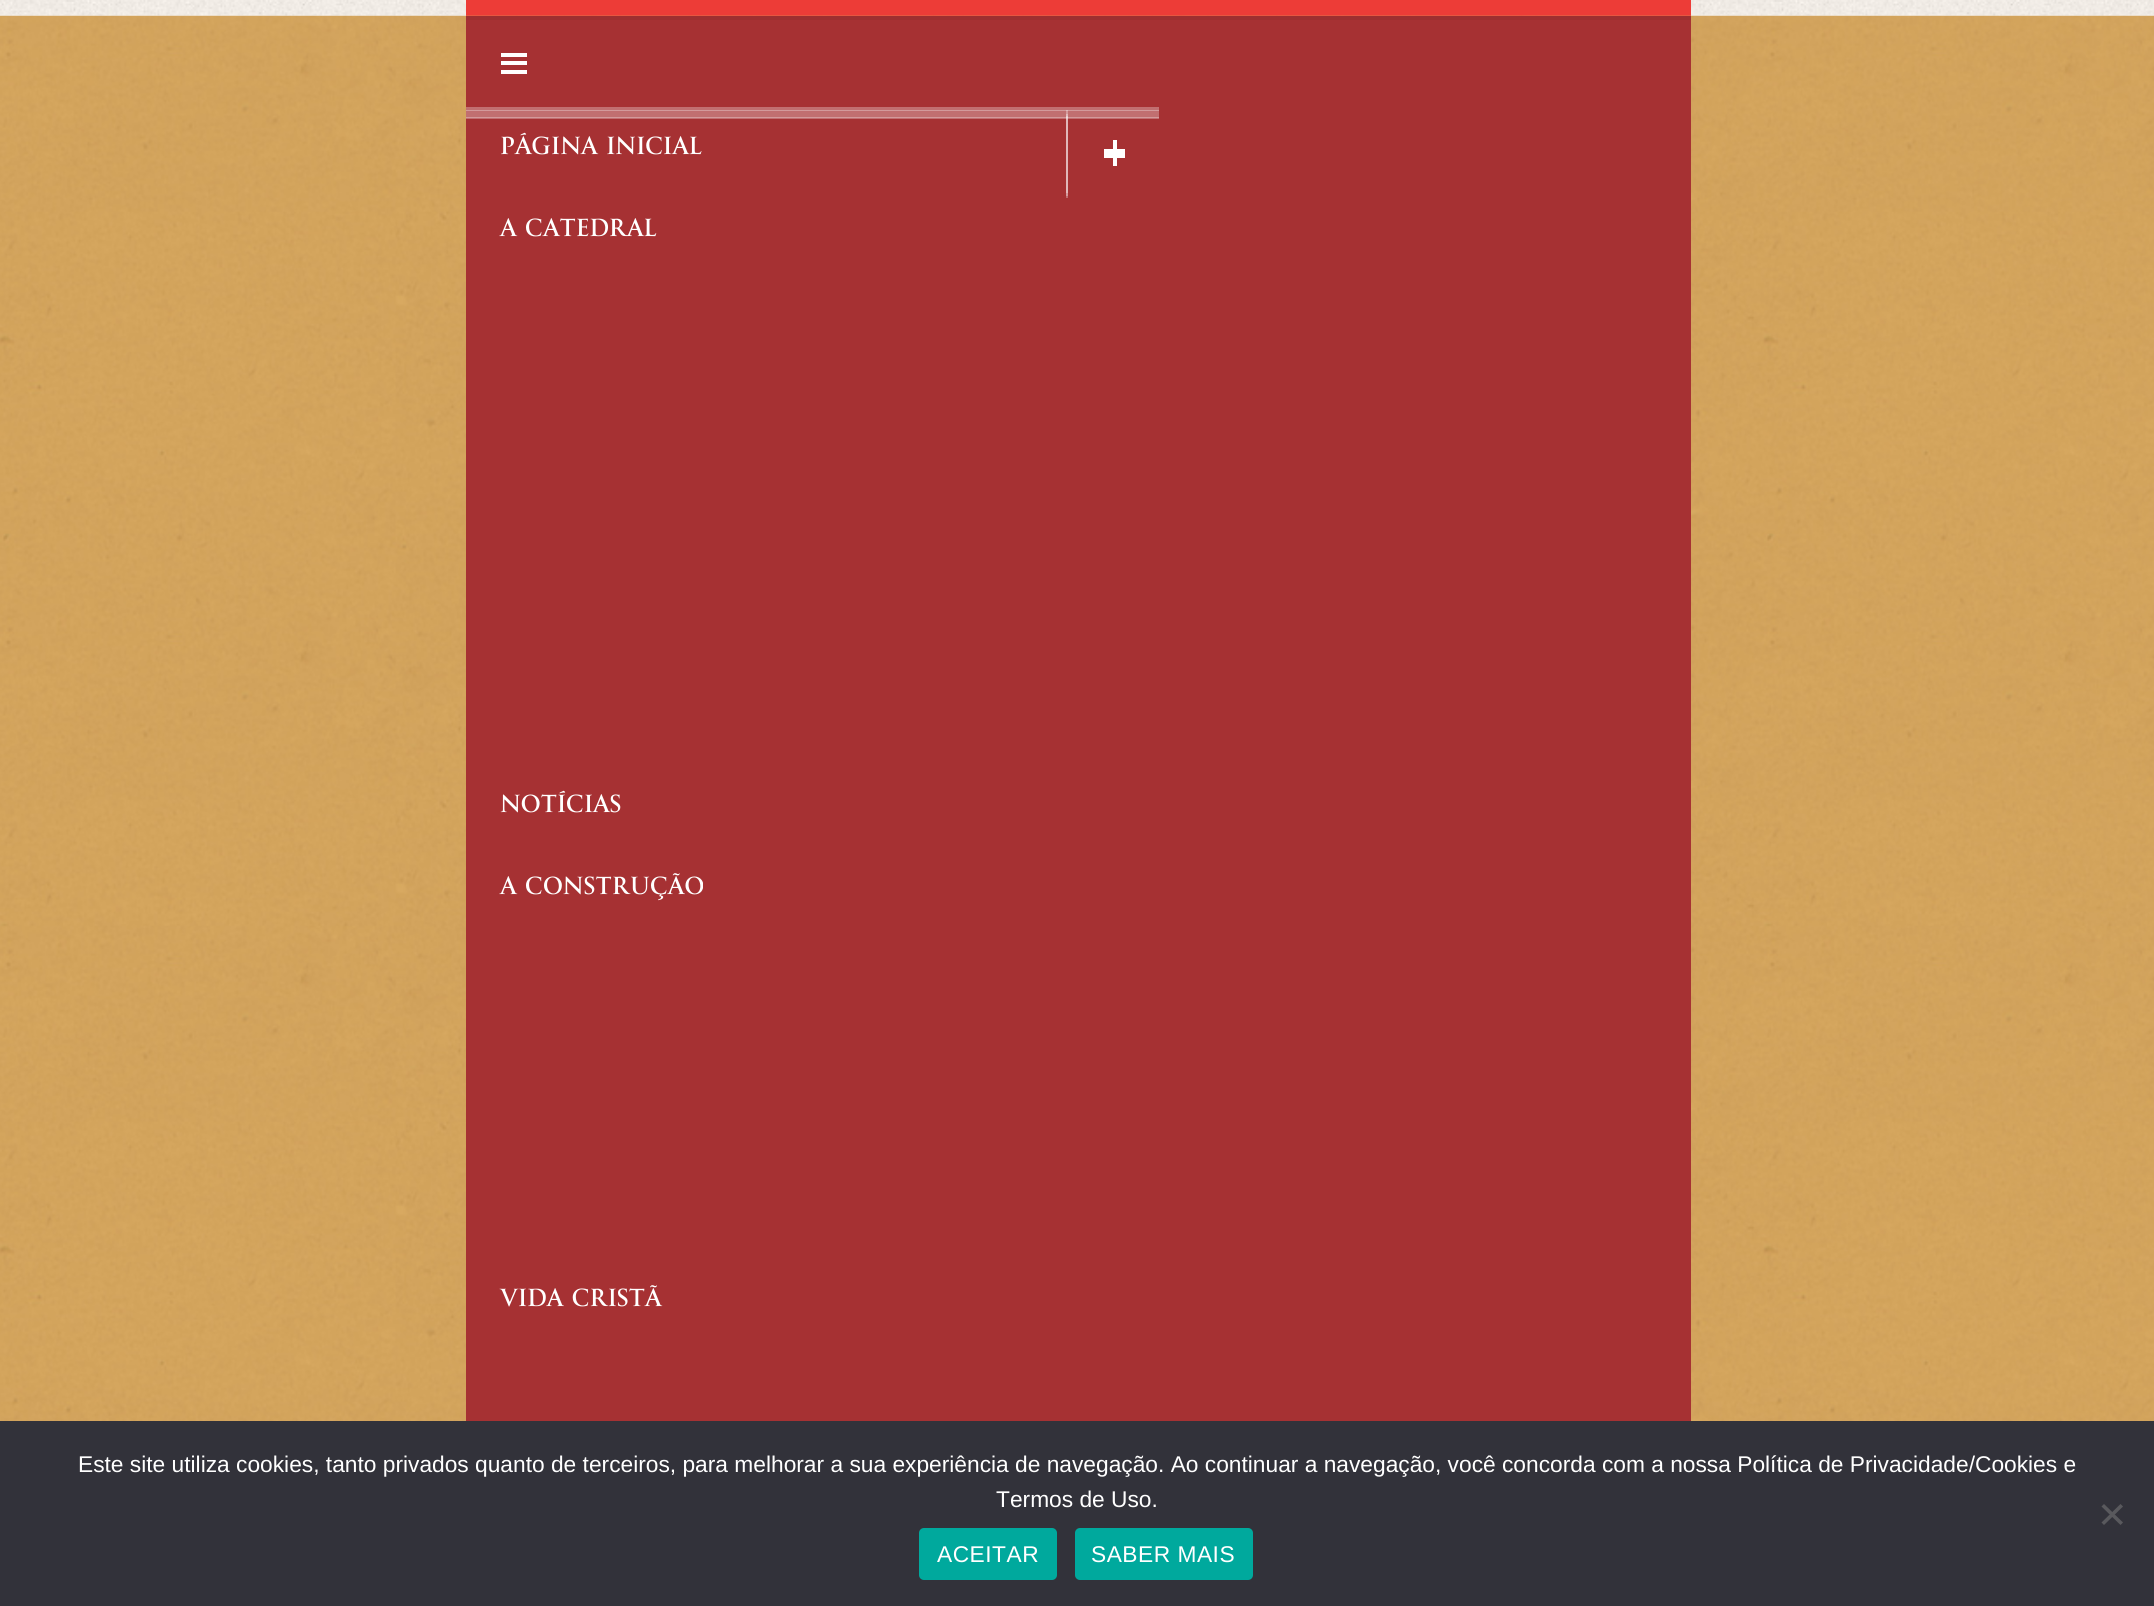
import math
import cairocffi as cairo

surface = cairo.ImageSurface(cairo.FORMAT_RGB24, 2154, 1606)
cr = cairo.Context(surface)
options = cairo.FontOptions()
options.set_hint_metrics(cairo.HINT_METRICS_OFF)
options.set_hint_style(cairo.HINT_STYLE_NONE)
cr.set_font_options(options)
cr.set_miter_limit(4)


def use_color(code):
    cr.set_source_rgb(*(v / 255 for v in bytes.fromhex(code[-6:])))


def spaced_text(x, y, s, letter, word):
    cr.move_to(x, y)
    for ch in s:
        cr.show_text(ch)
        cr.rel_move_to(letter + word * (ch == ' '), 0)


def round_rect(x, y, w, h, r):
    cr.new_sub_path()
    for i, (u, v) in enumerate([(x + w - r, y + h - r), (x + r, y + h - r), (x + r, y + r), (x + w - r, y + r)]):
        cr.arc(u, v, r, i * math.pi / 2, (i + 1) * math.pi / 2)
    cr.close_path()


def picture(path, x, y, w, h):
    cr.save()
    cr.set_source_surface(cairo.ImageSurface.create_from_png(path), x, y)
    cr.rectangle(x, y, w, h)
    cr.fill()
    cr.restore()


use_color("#ffffff")
cr.paint()
picture("img1.png", 0, 0, 2154, 16)
use_color("#ed3c37")
cr.rectangle(466, 0, 1225, 16)
cr.fill()
picture("img2.png", 0, 15, 2154, 1406)
use_color("#a63133")
cr.rectangle(466, 20, 1225, 1401)
cr.fill()
use_color("#9e2f30")
cr.rectangle(466, 16, 1225, 4)
cr.fill()
use_color("#ffffff")
cr.rectangle(501, 53, 26, 4)
cr.fill()
cr.rectangle(501, 61, 26, 4)
cr.fill()
cr.rectangle(501, 70, 26, 4)
cr.fill()
use_color("#c16f70")
cr.rectangle(466, 112, 693, 6)
cr.fill()
cr.set_source_rgba(1, 1, 1, 0.3)
cr.rectangle(466, 117, 693, 2)
cr.fill()
use_color("#c16f70")
cr.rectangle(466, 107, 693, 4)
cr.fill()
cr.select_font_face("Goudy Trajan", cairo.FONT_SLANT_NORMAL, cairo.FONT_WEIGHT_BOLD)
cr.set_font_size(24.5)
use_color("#ffffff")
cr.move_to(500, 154)
cr.show_text("PÁGINA INICIAL")
cr.set_source_rgba(1, 1, 1, 0.3)
cr.rectangle(466, 110, 693, 2)
cr.fill()
cr.rectangle(1066, 110, 2, 83)
cr.fill()
use_color("#ffffff")
cr.rectangle(1104, 149, 21, 9)
cr.fill()
cr.rectangle(1113, 140, 4, 26)
cr.fill()
cr.move_to(500, 236)
cr.show_text("A CATEDRAL")
cr.move_to(500, 812)
cr.show_text("NOTÍCIAS")
cr.set_source_rgba(1, 1, 1, 0.3)
cr.rectangle(1066, 114, 2, 82)
cr.fill()
use_color("#ffffff")
cr.move_to(500, 894)
cr.show_text("A CONSTRUÇÃO")
cr.set_source_rgba(1, 1, 1, 0.3)
cr.rectangle(1066, 116, 2, 82)
cr.fill()
use_color("#ffffff")
cr.move_to(500, 1306)
cr.show_text("VIDA CRISTÃ")
use_color("#32323a")
cr.rectangle(0, 1421, 2154, 185)
cr.fill()
cr.select_font_face("Liberation Sans")
cr.set_font_size(22.75)
use_color("#ffffff")
cr.move_to(78, 1472)
cr.show_text("Este site utiliza cookies, tanto privados quanto de terceiros, para melhorar a sua experiência de navegação. Ao continuar a navegação, você concorda com a nossa Política de Privacidade/Cookies e")
cr.move_to(996, 1507)
cr.show_text("Termos de Uso.")
use_color("#59595d")
cr.new_path()
cr.move_to(2120.5, 1504)
cr.line_to(2123, 1506.5)
cr.line_to(2104, 1525)
cr.line_to(2101.5, 1522.5)
cr.close_path()
cr.fill()
cr.new_path()
cr.move_to(2101.5, 1506.5)
cr.line_to(2104, 1504)
cr.line_to(2123, 1522.5)
cr.line_to(2120.5, 1525)
cr.close_path()
cr.fill()
use_color("#00a99d")
round_rect(919, 1528, 138, 52, 5)
cr.fill()
use_color("#ffffff")
spaced_text(937, 1562, "ACEITAR", 0.5, 0)
use_color("#00a99d")
round_rect(1075, 1528, 178, 52, 5)
cr.fill()
use_color("#ffffff")
spaced_text(1091, 1562, "SABER MAIS", 0.5, 0)
surface.write_to_png("result.png")
